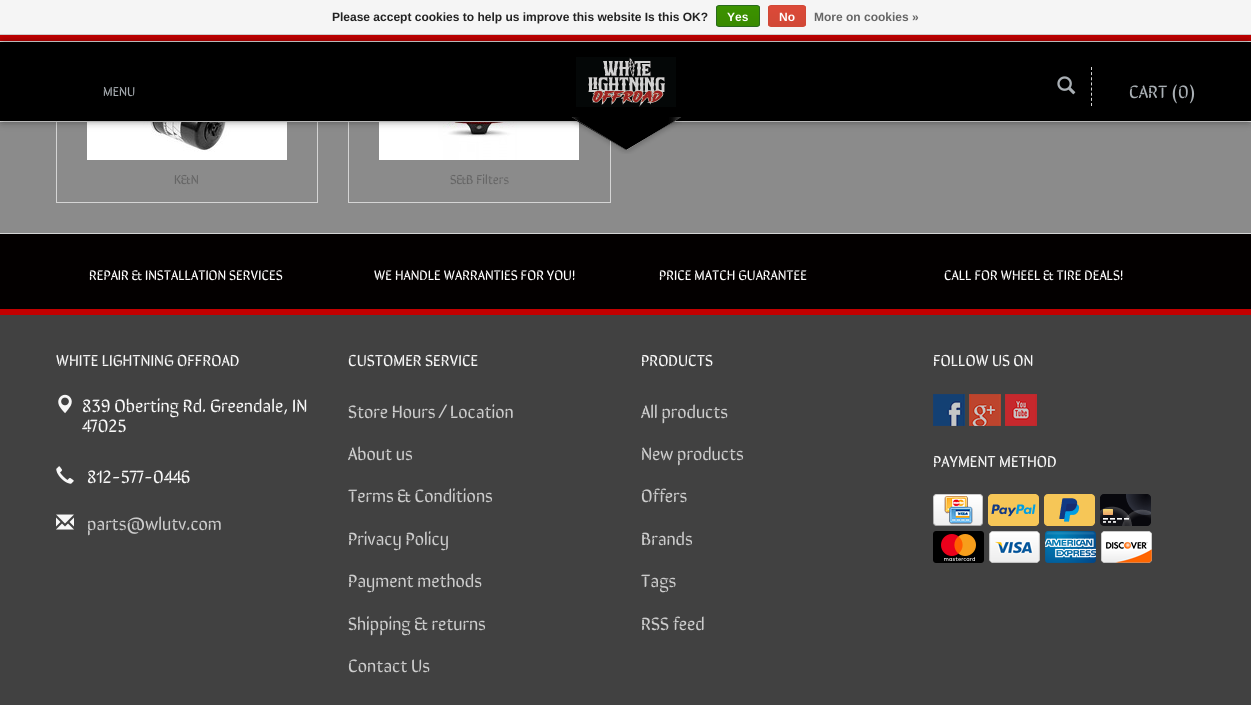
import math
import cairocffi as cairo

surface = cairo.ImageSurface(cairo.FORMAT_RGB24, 1251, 705)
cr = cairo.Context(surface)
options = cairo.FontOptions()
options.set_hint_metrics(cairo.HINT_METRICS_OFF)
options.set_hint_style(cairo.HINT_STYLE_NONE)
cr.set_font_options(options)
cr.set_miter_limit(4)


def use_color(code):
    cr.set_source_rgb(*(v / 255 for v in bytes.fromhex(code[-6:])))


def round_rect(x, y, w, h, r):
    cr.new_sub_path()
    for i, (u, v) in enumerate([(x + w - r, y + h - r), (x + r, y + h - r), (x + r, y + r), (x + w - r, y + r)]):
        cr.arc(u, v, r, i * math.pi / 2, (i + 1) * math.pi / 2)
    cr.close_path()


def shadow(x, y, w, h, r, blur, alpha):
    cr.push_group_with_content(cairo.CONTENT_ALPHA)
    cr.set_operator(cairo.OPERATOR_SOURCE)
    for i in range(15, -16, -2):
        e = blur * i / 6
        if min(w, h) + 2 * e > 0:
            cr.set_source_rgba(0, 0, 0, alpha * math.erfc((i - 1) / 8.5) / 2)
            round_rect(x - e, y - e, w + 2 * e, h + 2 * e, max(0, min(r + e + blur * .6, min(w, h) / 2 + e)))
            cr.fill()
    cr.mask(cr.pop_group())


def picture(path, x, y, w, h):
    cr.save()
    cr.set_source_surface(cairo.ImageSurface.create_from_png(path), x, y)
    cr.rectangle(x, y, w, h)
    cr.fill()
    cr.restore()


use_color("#8b8b8b")
cr.paint()
cr.rectangle(56.5, 69.5, 261, 133)
use_color("#d5d5d5")
cr.set_line_width(1)
cr.stroke()
cr.rectangle(348.5, 69.5, 262, 133)
cr.stroke()
use_color("#f0f0f0")
cr.rectangle(0, 121, 1251, 1)
cr.fill()
use_color("#c20000")
cr.rectangle(0, 35, 1251, 6)
cr.fill()
use_color("#f0f0f0")
cr.rectangle(0, 41, 1251, 1)
cr.fill()
picture("img4.png", 87, 122, 200, 38)
picture("img5.png", 379, 122, 200, 38)
use_color("#000000")
shadow(2, 44, 1247, 75, 0, 5, 0.75)
use_color("#f5f5f5")
cr.rectangle(0, 0, 1251, 34)
cr.fill()
use_color("#cccccc")
cr.rectangle(0, 34, 1251, 1)
cr.fill()
cr.select_font_face("Liberation Sans", cairo.FONT_SLANT_NORMAL, cairo.FONT_WEIGHT_BOLD)
cr.set_font_size(12)
use_color("#222222")
cr.move_to(332, 21)
cr.show_text("Please accept cookies to help us improve this website Is this OK?")
cr.save()
round_rect(716, 5, 44, 22, 3)
cr.clip()
gradient = cairo.LinearGradient(738, 6, 738, 26)
gradient.add_color_stop_rgba(0, 0.235, 0.576, 0, 1)
gradient.add_color_stop_rgba(1, 0.224, 0.541, 0, 1)
cr.set_source(gradient)
cr.rectangle(716, 6, 44, 20)
cr.fill()
cr.restore()
round_rect(716.5, 5.5, 43, 21, 2.5)
use_color("#29691d")
cr.stroke()
use_color("#ffffff")
cr.move_to(727, 21)
cr.show_text("Yes")
cr.save()
round_rect(768, 5, 38, 22, 3)
cr.clip()
gradient = cairo.LinearGradient(787, 6, 787, 26)
gradient.add_color_stop_rgba(0, 0.863, 0.29, 0.22, 1)
gradient.add_color_stop_rgba(1, 0.82, 0.282, 0.212, 1)
cr.set_source(gradient)
cr.rectangle(768, 6, 38, 20)
cr.fill()
cr.restore()
round_rect(768.5, 5.5, 37, 21, 2.5)
use_color("#d14836")
cr.stroke()
use_color("#ffffff")
cr.move_to(779, 21)
cr.show_text("No")
use_color("#656565")
cr.move_to(814, 21)
cr.show_text("More on cookies »")
use_color("#000000")
cr.rectangle(0, 42, 1251, 79)
cr.fill()
cr.select_font_face("SirinStencil")
cr.set_font_size(13)
use_color("#a9afb4")
cr.move_to(103, 96)
cr.show_text("MENU")
picture("img1.png", 576, 57, 100, 50)
use_color("#000000")
cr.new_path()
cr.move_to(570, 117)
cr.line_to(682, 117)
cr.line_to(626, 150)
cr.close_path()
cr.fill()
picture("img2.png", 570, 117, 112, 37)
picture("img3.png", 1057, 76, 19, 19)
cr.new_path()
cr.move_to(1091.5, 67)
cr.line_to(1091.5, 106)
use_color("#d5d5d5")
cr.set_dash([3, 2.14])
cr.stroke()
cr.set_font_size(18)
use_color("#a9afb4")
cr.move_to(1129, 98)
cr.show_text("CART (0)")
cr.set_font_size(13)
use_color("#656565")
cr.move_to(174, 184)
cr.show_text("K&N")
cr.move_to(450, 184)
cr.show_text("S&B Filters")
use_color("#030000")
cr.rectangle(0, 234, 1251, 75)
cr.fill()
use_color("#d5d5d5")
cr.rectangle(0, 233, 1251, 1)
cr.fill()
cr.set_font_size(14)
use_color("#ffffff")
cr.move_to(89, 280)
cr.show_text("REPAIR & INSTALLATION SERVICES")
cr.move_to(374, 280)
cr.show_text("WE HANDLE WARRANTIES FOR YOU!")
cr.move_to(659, 280)
cr.show_text("PRICE MATCH GUARANTEE")
cr.move_to(944, 280)
cr.show_text("CALL FOR WHEEL & TIRE DEALS!")
use_color("#414141")
cr.rectangle(0, 315, 1251, 390)
cr.fill()
use_color("#c20000")
cr.rectangle(0, 309, 1251, 6)
cr.fill()
cr.set_font_size(16)
use_color("#f7f7f7")
cr.move_to(56, 366)
cr.show_text("WHITE LIGHTNING OFFROAD")
picture("img6.png", 58, 394, 14, 20)
cr.set_font_size(18)
cr.move_to(82, 412)
cr.show_text("839 Oberting Rd. Greendale, IN")
cr.move_to(82, 432)
cr.show_text("47025")
picture("img7.png", 56, 466, 18, 18)
cr.move_to(87, 483)
cr.show_text("812-577-0446")
picture("img8.png", 56, 514, 18, 16)
use_color("#cccccc")
cr.move_to(87, 530)
cr.show_text("parts@wlutv.com")
cr.set_font_size(16)
use_color("#f7f7f7")
cr.move_to(348, 366)
cr.show_text("CUSTOMER SERVICE")
cr.set_font_size(18)
use_color("#cccccc")
cr.move_to(348, 418)
cr.show_text("Store Hours / Location")
cr.move_to(348, 460)
cr.show_text("About us")
cr.move_to(348, 502)
cr.show_text("Terms & Conditions")
cr.move_to(348, 545)
cr.show_text("Privacy Policy")
cr.move_to(348, 587)
cr.show_text("Payment methods")
cr.move_to(348, 630)
cr.show_text("Shipping & returns")
cr.move_to(348, 672)
cr.show_text("Contact Us")
cr.set_font_size(16)
use_color("#f7f7f7")
cr.move_to(641, 366)
cr.show_text("PRODUCTS")
cr.set_font_size(18)
use_color("#cccccc")
cr.move_to(641, 418)
cr.show_text("All products")
cr.move_to(641, 460)
cr.show_text("New products")
cr.move_to(641, 502)
cr.show_text("Offers")
cr.move_to(641, 545)
cr.show_text("Brands")
cr.move_to(641, 587)
cr.show_text("Tags")
cr.move_to(641, 630)
cr.show_text("RSS feed")
cr.set_font_size(16)
use_color("#f7f7f7")
cr.move_to(933, 366)
cr.show_text("FOLLOW US ON")
picture("img9.png", 933, 394, 32, 32)
picture("img10.png", 969, 394, 32, 32)
picture("img11.png", 1005, 394, 32, 32)
cr.move_to(933, 467)
cr.show_text("PAYMENT METHOD")
picture("img12.png", 933, 494, 50, 32)
picture("img13.png", 988, 494, 51, 32)
picture("img14.png", 1044, 494, 51, 32)
picture("img15.png", 1100, 494, 51, 32)
picture("img16.png", 933, 531, 51, 32)
picture("img17.png", 989, 531, 51, 32)
picture("img18.png", 1045, 531, 51, 32)
picture("img19.png", 1101, 531, 51, 32)
surface.write_to_png("result.png")
